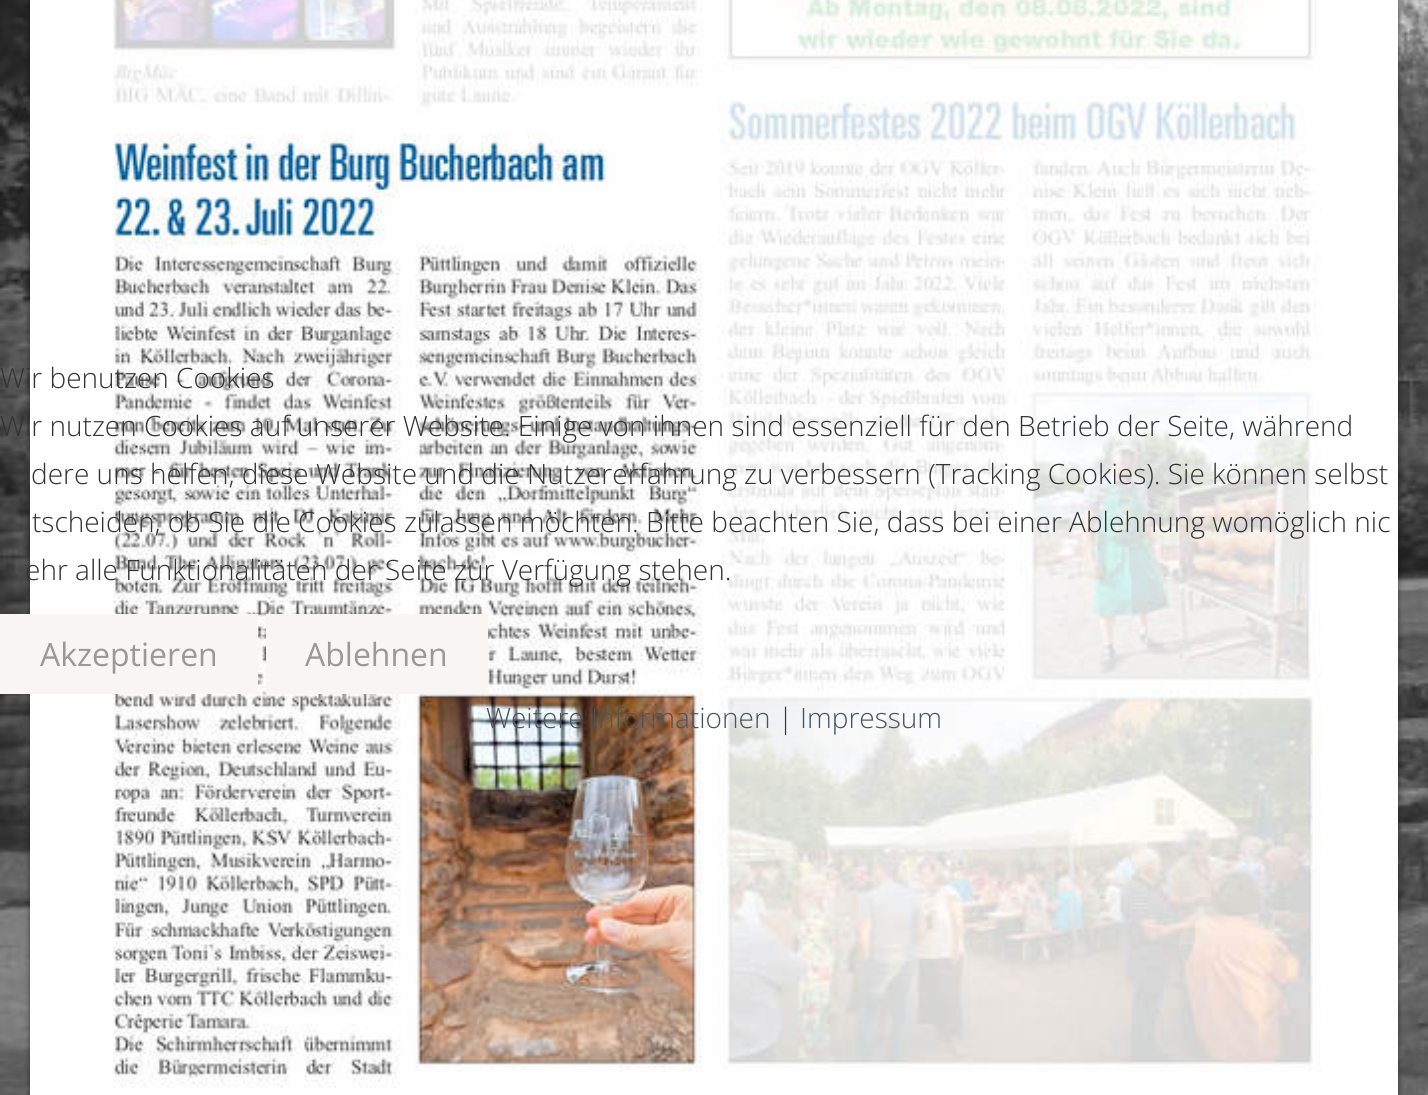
import math
import cairocffi as cairo

surface = cairo.ImageSurface(cairo.FORMAT_RGB24, 1428, 1095)
cr = cairo.Context(surface)
options = cairo.FontOptions()
options.set_hint_metrics(cairo.HINT_METRICS_OFF)
options.set_hint_style(cairo.HINT_STYLE_NONE)
cr.set_font_options(options)
cr.set_miter_limit(4)


def use_color(code):
    cr.set_source_rgb(*(v / 255 for v in bytes.fromhex(code[-6:])))


def round_rect(x, y, w, h, r):
    cr.new_sub_path()
    for i, (u, v) in enumerate([(x + w - r, y + h - r), (x + r, y + h - r), (x + r, y + r), (x + w - r, y + r)]):
        cr.arc(u, v, r, i * math.pi / 2, (i + 1) * math.pi / 2)
    cr.close_path()


def shadow(x, y, w, h, r, blur, alpha):
    cr.push_group_with_content(cairo.CONTENT_ALPHA)
    cr.set_operator(cairo.OPERATOR_SOURCE)
    for i in range(15, -16, -2):
        e = blur * i / 6
        if min(w, h) + 2 * e > 0:
            cr.set_source_rgba(0, 0, 0, alpha * math.erfc((i - 1) / 8.5) / 2)
            round_rect(x - e, y - e, w + 2 * e, h + 2 * e, max(0, min(r + e + blur * .6, min(w, h) / 2 + e)))
            cr.fill()
    cr.mask(cr.pop_group())


def picture(path, x, y, w, h):
    cr.save()
    cr.set_source_surface(cairo.ImageSurface.create_from_png(path), x, y)
    cr.rectangle(x, y, w, h)
    cr.fill()
    cr.restore()


use_color("#ffffff")
cr.paint()
picture("img1.png", 0, 0, 1428, 1095)
use_color("#000000")
shadow(30, -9, 1368, 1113, 0, 3, 0.5)
use_color("#ffffff")
cr.rectangle(30, 0, 1368, 1095)
cr.fill()
picture("img2.png", 113, 0, 1209, 1088)
cr.select_font_face("Open Sans Light")
cr.set_font_size(28)
use_color("#333333")
cr.move_to(0, 388)
cr.show_text("Wir benutzen Cookies")
cr.move_to(0, 436)
cr.show_text("Wir nutzen Cookies auf unserer Website. Einige von ihnen sind essenziell für den Betrieb der Seite, während")
cr.move_to(31, 484)
cr.show_text("dere uns helfen, diese Website und die Nutzererfahrung zu verbessern (Tracking Cookies). Sie können selbst")
cr.move_to(32, 532)
cr.show_text("tscheiden, ob Sie die Cookies zulassen möchten. Bitte beachten Sie, dass bei einer Ablehnung womöglich nic")
cr.move_to(25, 580)
cr.show_text("ehr alle Funktionalitäten der Seite zur Verfügung stehen.")
use_color("#f7f6f5")
cr.rectangle(0, 614, 258, 80)
cr.fill()
cr.select_font_face("Open Sans")
cr.set_font_size(32)
use_color("#999999")
cr.move_to(40, 666)
cr.show_text("Akzeptieren")
use_color("#f7f6f5")
cr.rectangle(266, 614, 222, 80)
cr.fill()
use_color("#999999")
cr.move_to(305, 666)
cr.show_text("Ablehnen")
cr.select_font_face("Open Sans Light")
cr.set_font_size(28)
use_color("#47555e")
cr.move_to(486, 728)
cr.show_text("Weitere Informationen")
use_color("#333333")
cr.move_to(778, 728)
cr.show_text("|")
use_color("#47555e")
cr.move_to(800, 728)
cr.show_text("Impressum")
surface.write_to_png("result.png")
